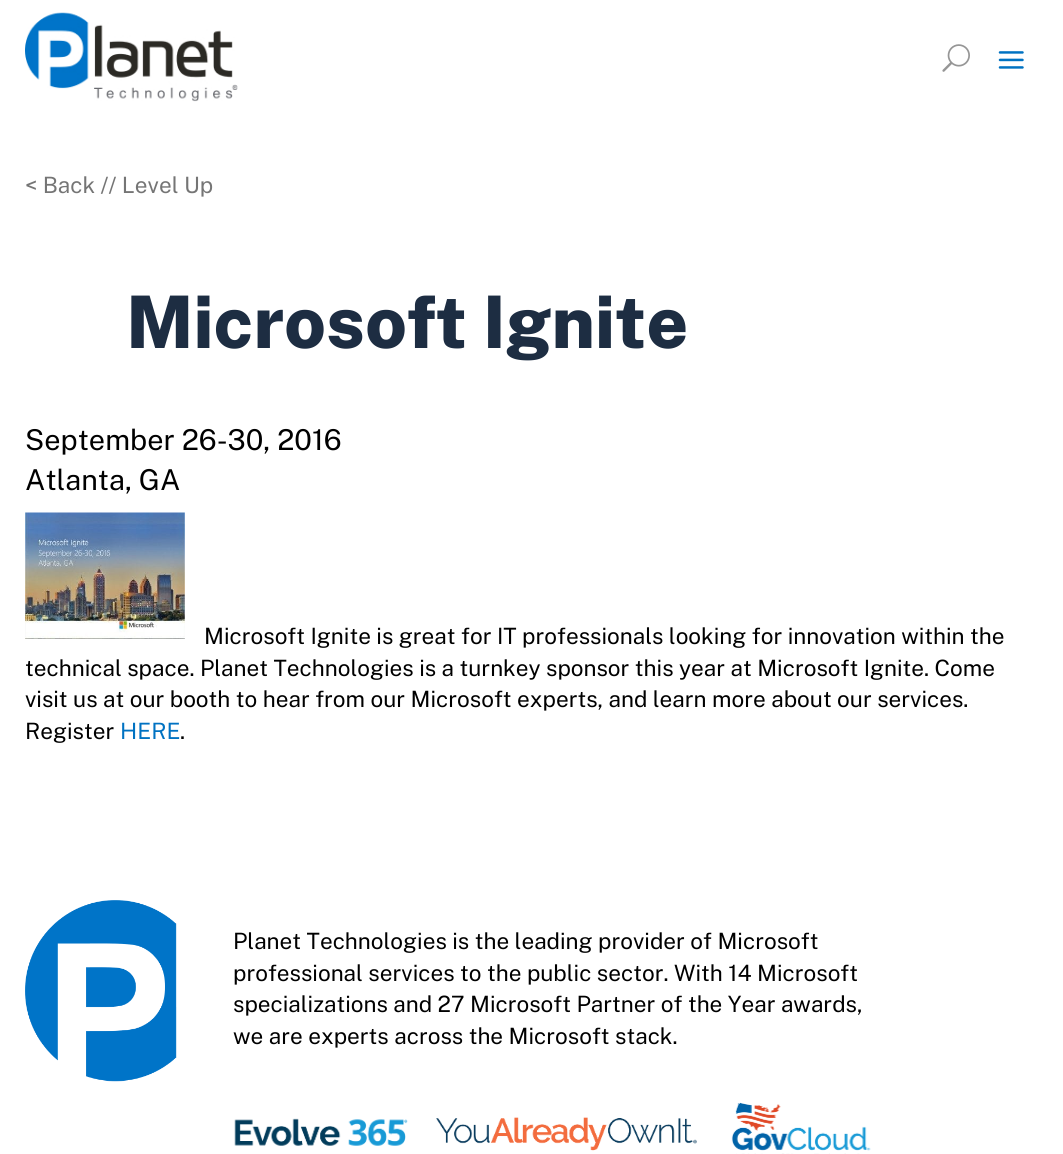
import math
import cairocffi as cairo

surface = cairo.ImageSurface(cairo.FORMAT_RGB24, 1063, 1154)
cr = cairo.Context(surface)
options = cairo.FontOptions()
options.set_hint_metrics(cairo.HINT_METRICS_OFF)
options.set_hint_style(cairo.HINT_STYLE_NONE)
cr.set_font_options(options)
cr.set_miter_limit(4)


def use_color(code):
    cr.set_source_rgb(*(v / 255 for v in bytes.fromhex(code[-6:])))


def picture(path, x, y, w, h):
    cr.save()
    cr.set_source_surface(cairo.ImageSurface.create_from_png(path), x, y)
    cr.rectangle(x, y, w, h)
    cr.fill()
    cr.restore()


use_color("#ffffff")
cr.paint()
picture("img1.png", 25, 12, 213, 90)
picture("img2.png", 942, 44, 28, 28)
picture("img3.png", 998, 51, 26, 18)
cr.select_font_face("Public Sans")
cr.set_font_size(22.5)
use_color("#757575")
cr.move_to(25, 193)
cr.show_text("< Back // Level Up")
cr.select_font_face("Public Sans ExtraBold")
cr.set_font_size(72.5)
use_color("#1d2d42")
cr.move_to(126, 348)
cr.show_text("Microsoft Ignite")
cr.select_font_face("Public Sans")
cr.set_font_size(28.75)
use_color("#000000")
cr.move_to(25, 450)
cr.show_text("September 26-30, 2016")
cr.move_to(25, 490)
cr.show_text("Atlanta, GA")
picture("img4.png", 25, 512, 160, 127)
cr.set_font_size(22.5)
cr.move_to(204, 644)
cr.show_text("Microsoft Ignite is great for IT professionals looking for innovation within the")
cr.move_to(25, 676)
cr.show_text("technical space. Planet Technologies is a turnkey sponsor this year at Microsoft Ignite. Come")
cr.move_to(25, 707)
cr.show_text("visit us at our booth to hear from our Microsoft experts, and learn more about our services.")
cr.move_to(25, 739)
cr.show_text("Register")
use_color("#0072c2")
cr.move_to(120, 739)
cr.show_text("HERE")
use_color("#000000")
cr.move_to(180, 739)
cr.show_text(".")
picture("img5.png", 25, 900, 152, 182)
cr.move_to(233, 949)
cr.show_text("Planet Technologies is the leading provider of Microsoft")
cr.move_to(233, 981)
cr.show_text("professional services to the public sector. With 14 Microsoft")
cr.move_to(233, 1012)
cr.show_text("specializations and 27 Microsoft Partner of the Year awards,")
cr.move_to(233, 1044)
cr.show_text("we are experts across the Microsoft stack.")
picture("img6.png", 234, 1118, 174, 28)
picture("img7.png", 436, 1117, 261, 34)
picture("img8.png", 731, 1102, 140, 52)
surface.write_to_png("result.png")
